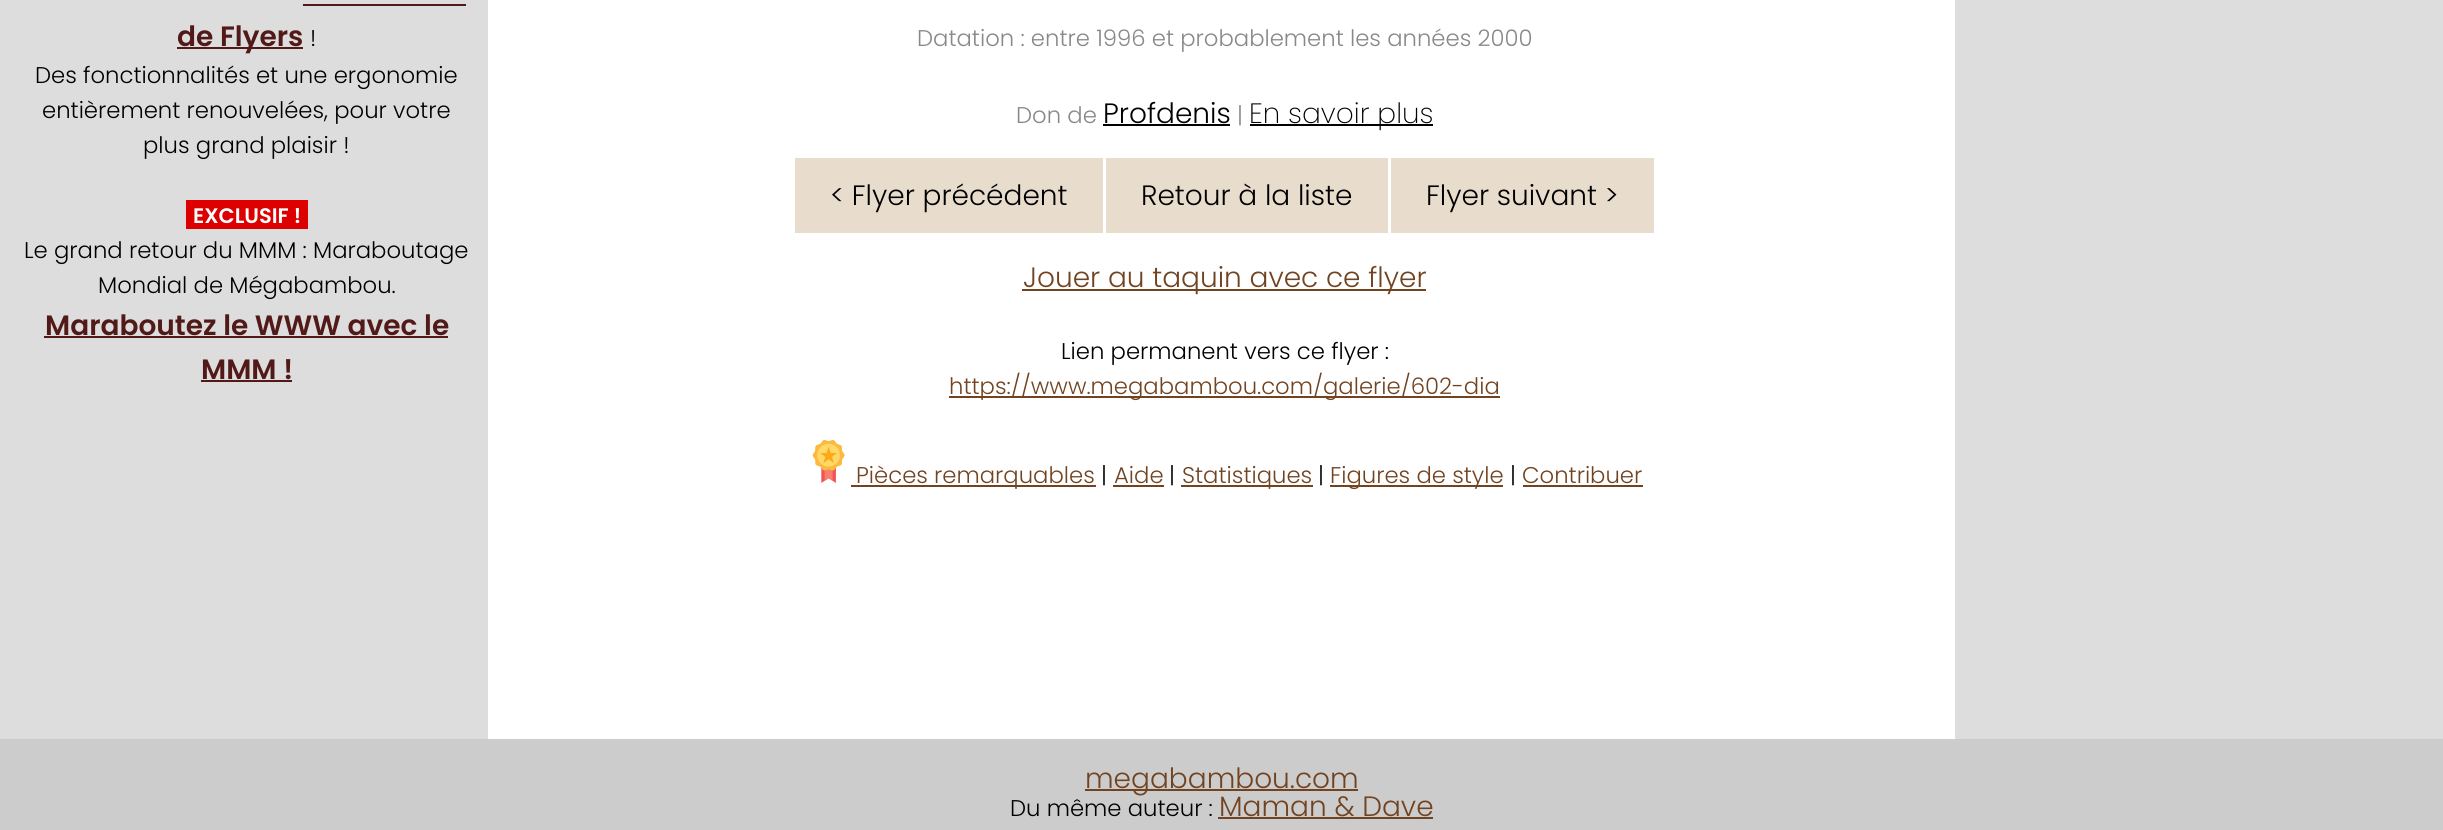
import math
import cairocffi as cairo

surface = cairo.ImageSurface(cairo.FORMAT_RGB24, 2443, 830)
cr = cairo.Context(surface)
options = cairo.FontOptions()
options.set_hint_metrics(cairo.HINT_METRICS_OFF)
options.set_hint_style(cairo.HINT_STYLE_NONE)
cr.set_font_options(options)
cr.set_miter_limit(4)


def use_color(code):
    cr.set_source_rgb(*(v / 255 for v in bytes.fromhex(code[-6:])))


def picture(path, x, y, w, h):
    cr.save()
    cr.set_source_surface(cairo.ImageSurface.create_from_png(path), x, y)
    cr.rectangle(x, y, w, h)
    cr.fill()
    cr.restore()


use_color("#cccccc")
cr.paint()
use_color("#dddddd")
cr.rectangle(0, 0, 488, 739)
cr.fill()
use_color("#ffffff")
cr.rectangle(488, 0, 1467, 739)
cr.fill()
use_color("#dddddd")
cr.rectangle(1955, 0, 488, 739)
cr.fill()
use_color("#521919")
cr.rectangle(177, 47, 126, 2)
cr.fill()
cr.select_font_face("Poppins SemiBold")
cr.set_font_size(28)
cr.move_to(177, 46)
cr.show_text("de Flyers")
cr.rectangle(303, 4, 163, 2)
cr.fill()
cr.select_font_face("Poppins Light")
cr.set_font_size(22.75)
use_color("#000000")
cr.move_to(310, 46)
cr.show_text("!")
cr.move_to(35, 83)
cr.show_text("Des fonctionnalités et une ergonomie")
cr.move_to(42, 118)
cr.show_text("entièrement renouvelées, pour votre")
cr.move_to(143, 153)
cr.show_text("plus grand plaisir !")
use_color("#dd0000")
cr.rectangle(186, 200, 122, 29)
cr.fill()
cr.select_font_face("Poppins SemiBold")
cr.set_font_size(21)
use_color("#ffffff")
cr.move_to(193, 223)
cr.show_text("EXCLUSIF !")
cr.select_font_face("Poppins Light")
cr.set_font_size(22.75)
use_color("#000000")
cr.move_to(24, 258)
cr.show_text("Le grand retour du MMM : Maraboutage")
cr.move_to(98, 293)
cr.show_text("Mondial de Mégabambou.")
cr.select_font_face("Poppins SemiBold")
cr.set_font_size(28)
use_color("#521919")
cr.move_to(45, 335)
cr.show_text("Maraboutez le WWW avec le")
cr.rectangle(44, 336, 404, 2)
cr.fill()
cr.move_to(201, 379)
cr.show_text("MMM !")
cr.rectangle(201, 380, 91, 2)
cr.fill()
cr.select_font_face("Poppins Light")
cr.set_font_size(22.75)
use_color("#888888")
cr.move_to(917, 46)
cr.show_text("Datation : entre 1996 et probablement les années 2000")
cr.move_to(1016, 123)
cr.show_text("Don de")
cr.set_font_size(28)
use_color("#000000")
cr.move_to(1103, 123)
cr.show_text("Profdenis")
cr.rectangle(1103, 124, 127, 2)
cr.fill()
cr.set_font_size(22.75)
use_color("#888888")
cr.move_to(1237, 123)
cr.show_text("|")
use_color("#000000")
cr.rectangle(1250, 124, 183, 2)
cr.fill()
cr.select_font_face("Poppins ExtraLight")
cr.set_font_size(28)
cr.move_to(1249, 123)
cr.show_text("En savoir plus")
use_color("#e8dccc")
cr.rectangle(795, 158, 308, 75)
cr.fill()
cr.select_font_face("Poppins Light")
use_color("#000000")
cr.move_to(830, 205)
cr.show_text("< Flyer précédent")
use_color("#e8dccc")
cr.rectangle(1106, 158, 282, 75)
cr.fill()
use_color("#000000")
cr.move_to(1141, 205)
cr.show_text("Retour à la liste")
use_color("#e8dccc")
cr.rectangle(1391, 158, 263, 75)
cr.fill()
use_color("#000000")
cr.move_to(1426, 205)
cr.show_text("Flyer suivant >")
use_color("#714320")
cr.rectangle(1022, 289, 404, 2)
cr.fill()
cr.move_to(1023, 287)
cr.show_text("Jouer au taquin avec ce flyer")
cr.set_font_size(22.75)
use_color("#000000")
cr.move_to(1061, 359)
cr.show_text("Lien permanent vers ce flyer :")
use_color("#714320")
cr.rectangle(949, 396, 551, 2)
cr.fill()
cr.move_to(949, 394)
cr.show_text("https://www.megabambou.com/galerie/602-dia")
picture("img1.png", 812, 440, 33, 43)
cr.rectangle(851, 485, 245, 2)
cr.fill()
cr.move_to(856, 483)
cr.show_text("Pièces remarquables")
use_color("#000000")
cr.move_to(1101, 483)
cr.show_text("|")
use_color("#714320")
cr.move_to(1114, 483)
cr.show_text("Aide")
cr.rectangle(1113, 485, 51, 2)
cr.fill()
use_color("#000000")
cr.move_to(1169, 483)
cr.show_text("|")
use_color("#714320")
cr.rectangle(1181, 485, 132, 2)
cr.fill()
cr.move_to(1182, 483)
cr.show_text("Statistiques")
use_color("#000000")
cr.move_to(1318, 483)
cr.show_text("|")
use_color("#714320")
cr.rectangle(1330, 485, 173, 2)
cr.fill()
cr.move_to(1330, 483)
cr.show_text("Figures de style")
use_color("#000000")
cr.move_to(1510, 483)
cr.show_text("|")
use_color("#714320")
cr.move_to(1522, 483)
cr.show_text("Contribuer")
cr.rectangle(1523, 485, 120, 2)
cr.fill()
cr.rectangle(1085, 789, 273, 2)
cr.fill()
cr.set_font_size(28)
cr.move_to(1085, 788)
cr.show_text("megabambou.com")
cr.set_font_size(22.75)
use_color("#000000")
cr.move_to(1010, 816)
cr.show_text("Du même auteur :")
cr.set_font_size(28)
use_color("#714320")
cr.move_to(1219, 816)
cr.show_text("Maman & Dave")
cr.rectangle(1218, 817, 215, 2)
cr.fill()
surface.write_to_png("result.png")
